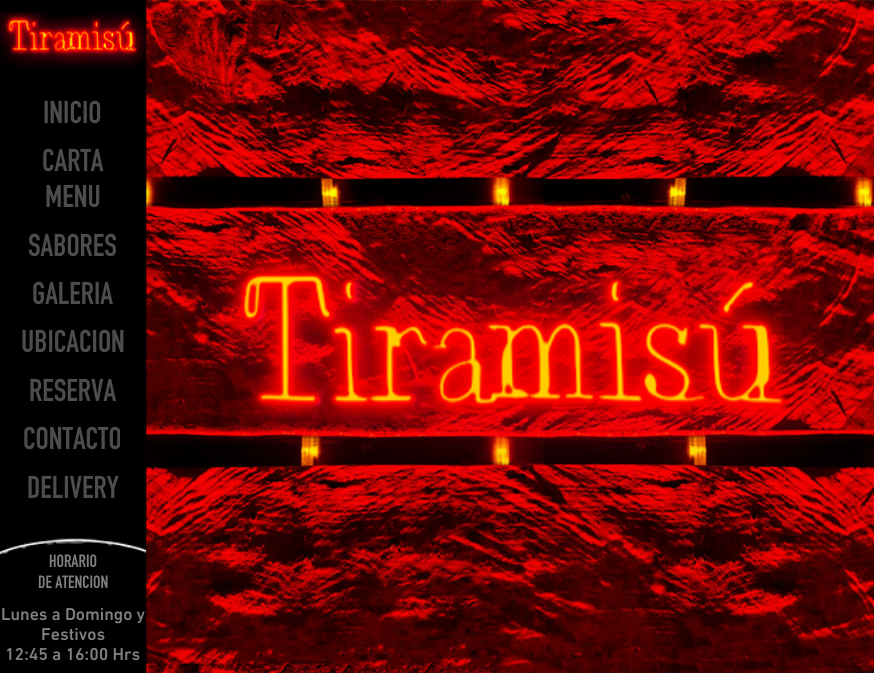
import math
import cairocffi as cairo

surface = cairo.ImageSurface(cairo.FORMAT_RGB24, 874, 673)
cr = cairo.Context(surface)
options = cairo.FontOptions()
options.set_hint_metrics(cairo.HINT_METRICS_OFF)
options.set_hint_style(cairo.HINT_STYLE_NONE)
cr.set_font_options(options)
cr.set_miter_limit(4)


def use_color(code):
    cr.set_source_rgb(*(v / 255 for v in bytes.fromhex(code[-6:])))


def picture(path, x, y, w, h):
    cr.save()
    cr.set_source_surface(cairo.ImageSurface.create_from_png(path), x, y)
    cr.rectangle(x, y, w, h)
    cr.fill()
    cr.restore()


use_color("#000000")
cr.paint()
picture("img1.png", 0, 12, 147, 56)
cr.select_font_face("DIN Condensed", cairo.FONT_SLANT_NORMAL, cairo.FONT_WEIGHT_BOLD)
cr.set_font_size(31)
use_color("#4d4d4d")
cr.move_to(43, 123)
cr.show_text("INICIO")
cr.move_to(42, 171)
cr.show_text("CARTA")
cr.move_to(45, 207)
cr.show_text("MENU")
cr.move_to(28, 256)
cr.show_text("SABORES")
cr.move_to(32, 304)
cr.show_text("GALERIA")
cr.move_to(21, 352)
cr.show_text("UBICACION")
cr.move_to(29, 401)
cr.show_text("RESERVA")
cr.move_to(23, 449)
cr.show_text("CONTACTO")
cr.move_to(27, 498)
cr.show_text("DELIVERY")
picture("img2.png", 0, 538, 147, 17)
cr.set_font_size(17.5)
use_color("#808080")
cr.move_to(49, 567)
cr.show_text("HORARIO")
cr.move_to(38, 588)
cr.show_text("DE ATENCION")
cr.select_font_face("DIN Next Medium")
cr.move_to(1, 620)
cr.show_text("Lunes a Domingo y")
cr.move_to(41, 640)
cr.show_text("Festivos")
cr.move_to(5, 660)
cr.show_text("12:45 a 16:00 Hrs")
picture("img3.png", 145, 0, 729, 673)
picture("img4.png", 174, 214, 675, 274)
surface.write_to_png("result.png")
